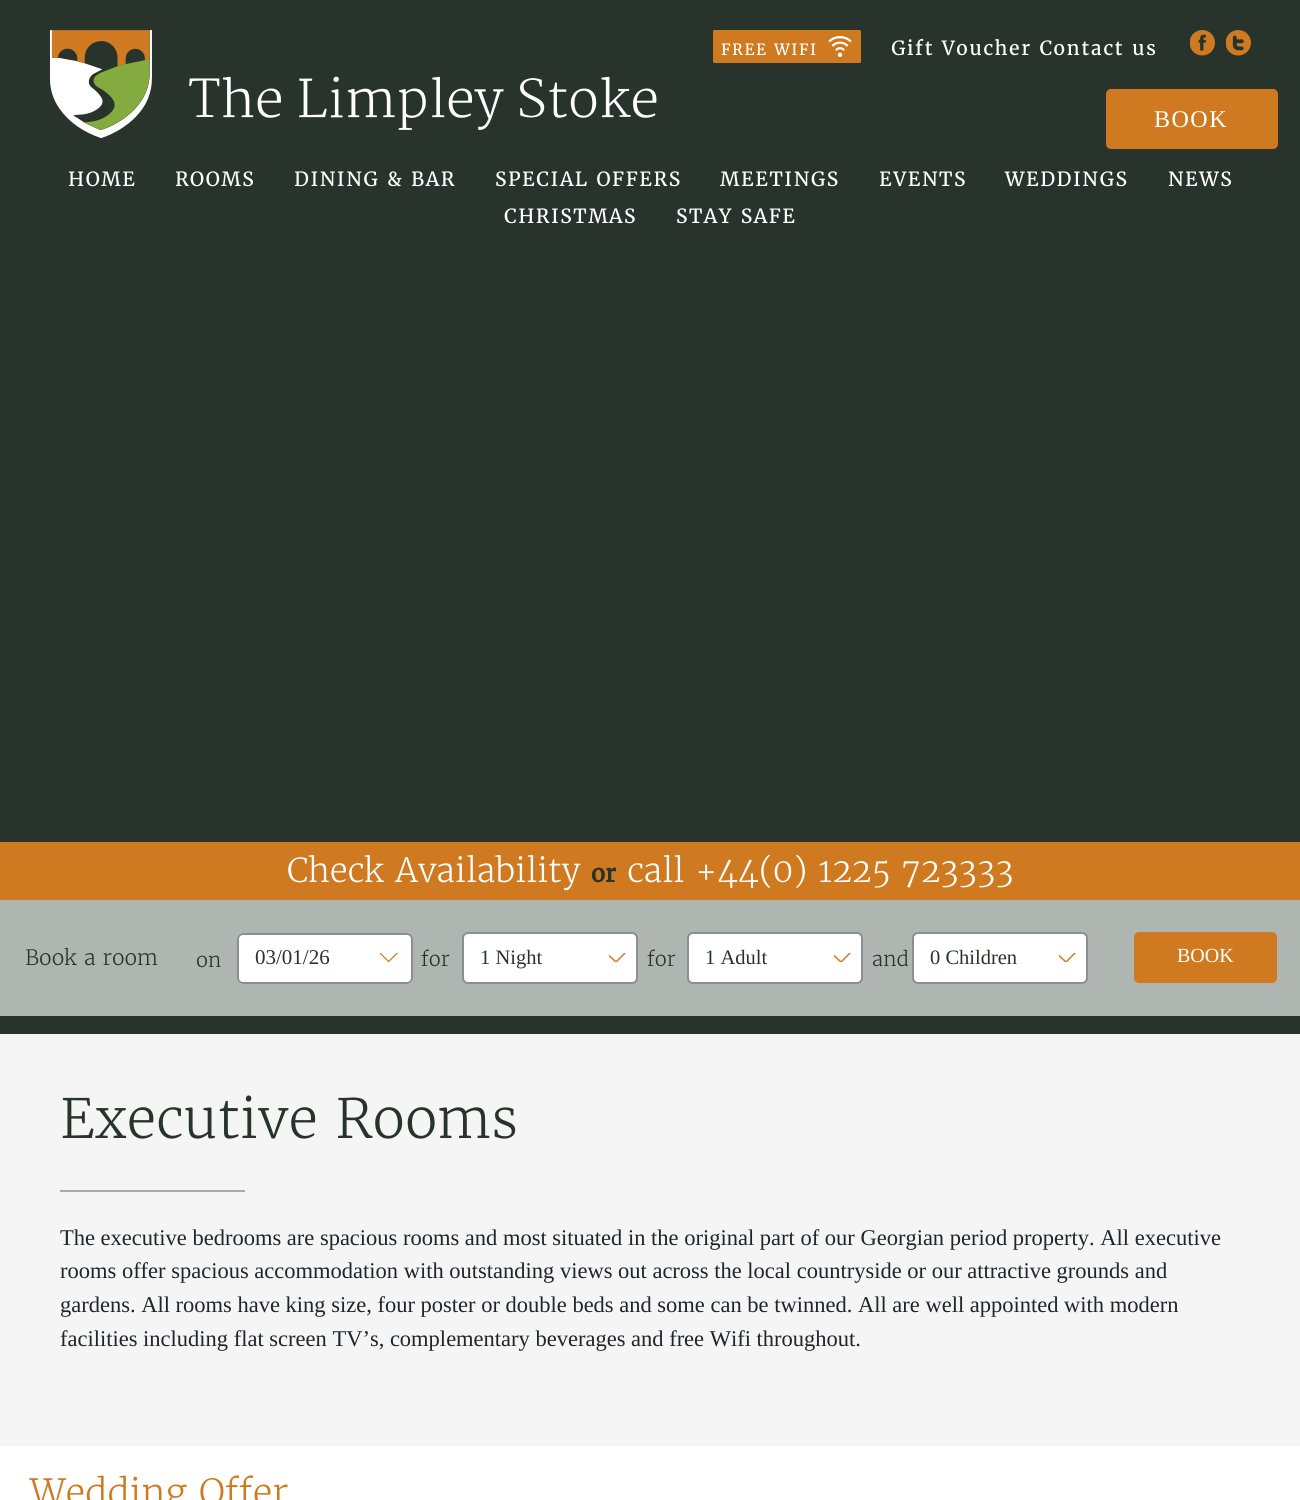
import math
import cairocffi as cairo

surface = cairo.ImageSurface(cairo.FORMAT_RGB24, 1300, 1500)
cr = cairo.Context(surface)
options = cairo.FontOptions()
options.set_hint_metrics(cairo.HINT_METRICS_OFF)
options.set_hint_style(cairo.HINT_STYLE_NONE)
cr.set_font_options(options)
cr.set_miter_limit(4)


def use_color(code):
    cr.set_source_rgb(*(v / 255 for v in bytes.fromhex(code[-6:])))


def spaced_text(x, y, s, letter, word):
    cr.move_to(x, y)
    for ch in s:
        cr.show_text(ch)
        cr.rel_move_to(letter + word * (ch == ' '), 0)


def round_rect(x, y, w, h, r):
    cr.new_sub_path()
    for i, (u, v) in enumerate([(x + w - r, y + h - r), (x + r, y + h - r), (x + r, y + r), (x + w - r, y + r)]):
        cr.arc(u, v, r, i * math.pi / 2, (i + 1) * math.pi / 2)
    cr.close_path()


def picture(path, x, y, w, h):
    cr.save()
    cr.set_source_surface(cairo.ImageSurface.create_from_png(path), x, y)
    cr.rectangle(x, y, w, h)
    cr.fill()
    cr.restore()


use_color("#28332c")
cr.paint()
picture("img1.png", 50, 30, 607, 108)
use_color("#cf7a21")
round_rect(713, 30, 148, 33, 1.5)
cr.fill()
cr.select_font_face("Merriweather")
cr.set_font_size(15.5)
use_color("#ffffff")
spaced_text(721, 55, "FREE WIFI", 1.5, 0)
picture("img2.png", 828, 36, 24, 21)
cr.set_font_size(19.5)
spaced_text(891, 55, "Gift Voucher Contact us", 1.5, 0)
picture("img3.png", 1190, 30, 25, 26)
picture("img4.png", 1226, 30, 25, 26)
use_color("#cf7a21")
round_rect(1106, 89, 172, 60, 5)
cr.fill()
cr.select_font_face("Liberation Serif")
cr.set_font_size(24)
use_color("#ffffff")
spaced_text(1154, 127, "BOOK", 1.5, 0)
cr.select_font_face("Merriweather")
cr.set_font_size(19.5)
spaced_text(68, 186, "HOME", 1.5, 0)
spaced_text(175, 186, "ROOMS", 1.5, 0)
spaced_text(294, 186, "DINING & BAR", 1.5, 0)
spaced_text(495, 186, "SPECIAL OFFERS", 1.5, 0)
spaced_text(720, 186, "MEETINGS", 1.5, 0)
spaced_text(879, 186, "EVENTS", 1.5, 0)
spaced_text(1005, 186, "WEDDINGS", 1.5, 0)
spaced_text(1168, 186, "NEWS", 1.5, 0)
spaced_text(504, 223, "CHRISTMAS", 1.5, 0)
spaced_text(676, 223, "STAY SAFE", 1.5, 0)
use_color("#cf7a21")
cr.rectangle(0, 842, 1300, 58)
cr.fill()
cr.select_font_face("Merriweather Light")
cr.set_font_size(33)
use_color("#ffffff")
cr.move_to(287, 882)
cr.show_text("Check Availability")
cr.select_font_face("Merriweather", cairo.FONT_SLANT_NORMAL, cairo.FONT_WEIGHT_BOLD)
cr.set_font_size(24)
use_color("#28332c")
cr.move_to(591, 882)
cr.show_text("or")
cr.select_font_face("Merriweather Light")
cr.set_font_size(33)
use_color("#ffffff")
cr.move_to(627, 882)
cr.show_text("call +44(0) 1225 723333")
use_color("#afb6b2")
cr.rectangle(0, 900, 1300, 116)
cr.fill()
cr.set_font_size(21)
use_color("#28332c")
cr.move_to(25, 965)
cr.show_text("Book a room")
cr.set_font_size(20)
cr.move_to(196, 967)
cr.show_text("on")
use_color("#ffffff")
round_rect(237, 933, 176, 51, 6)
cr.fill()
cr.save()
cr.rectangle(380, 953, 18, 10)
cr.clip()
cr.new_path()
cr.move_to(397.5, 953)
cr.line_to(388.5, 961.5)
cr.line_to(380, 953)
use_color("#d07a22")
cr.set_line_width(1.2)
cr.set_line_cap(cairo.LINE_CAP_ROUND)
cr.stroke()
cr.restore()
round_rect(238, 934, 174, 49, 5)
use_color("#8b8f91")
cr.stroke()
cr.select_font_face("Liberation Serif")
cr.set_font_size(21)
use_color("#28332c")
cr.move_to(255, 964)
cr.show_text("03/01/26")
cr.select_font_face("Merriweather Light")
cr.set_font_size(20)
cr.move_to(421, 966)
cr.show_text("for")
use_color("#ffffff")
round_rect(463, 933, 174, 50, 5)
cr.fill_preserve()
use_color("#8b8f91")
cr.stroke()
cr.select_font_face("Liberation Serif")
cr.set_font_size(20.5)
use_color("#28332c")
cr.move_to(480, 964)
cr.show_text("1 Night")
cr.save()
cr.rectangle(609, 953, 18, 9)
cr.clip()
cr.new_path()
cr.move_to(626, 952)
cr.line_to(616, 962)
cr.line_to(605, 952)
use_color("#d07a22")
cr.set_line_width(1.5)
cr.set_line_cap(cairo.LINE_CAP_ROUND)
cr.stroke()
cr.restore()
cr.select_font_face("Merriweather Light")
cr.set_font_size(20)
cr.move_to(647, 966)
cr.show_text("for")
use_color("#ffffff")
round_rect(688, 933, 174, 50, 5)
cr.fill_preserve()
use_color("#8b8f91")
cr.stroke()
cr.select_font_face("Liberation Serif")
cr.set_font_size(20.5)
use_color("#28332c")
cr.move_to(705, 964)
cr.show_text("1 Adult")
cr.save()
cr.rectangle(834, 953, 18, 9)
cr.clip()
cr.new_path()
cr.move_to(851, 952)
cr.line_to(841, 962)
cr.line_to(830, 952)
use_color("#d07a22")
cr.set_line_width(1.5)
cr.set_line_cap(cairo.LINE_CAP_ROUND)
cr.stroke()
cr.restore()
cr.select_font_face("Merriweather Light")
cr.set_font_size(20)
cr.move_to(872, 966)
cr.show_text("and")
use_color("#ffffff")
round_rect(913, 933, 174, 50, 5)
cr.fill_preserve()
use_color("#8b8f91")
cr.stroke()
cr.select_font_face("Liberation Serif")
cr.set_font_size(20.5)
use_color("#28332c")
cr.move_to(930, 964)
cr.show_text("0 Children")
cr.save()
cr.rectangle(1059, 953, 18, 9)
cr.clip()
cr.new_path()
cr.move_to(1076, 952)
cr.line_to(1066, 962)
cr.line_to(1055, 952)
use_color("#d07a22")
cr.set_line_width(1.5)
cr.set_line_cap(cairo.LINE_CAP_ROUND)
cr.stroke()
cr.restore()
use_color("#cf7a21")
round_rect(1134, 932, 143, 51, 5)
cr.fill()
cr.set_font_size(20)
use_color("#ffffff")
cr.move_to(1177, 962)
cr.show_text("BOOK")
use_color("#f5f5f6")
cr.rectangle(0, 1034, 1300, 412)
cr.fill()
cr.select_font_face("Merriweather Light")
cr.set_font_size(54)
use_color("#28332c")
cr.move_to(60, 1138)
cr.show_text("Executive Rooms")
use_color("#a1adb6")
cr.rectangle(60, 1190, 185, 2)
cr.fill()
cr.select_font_face("Liberation Serif")
cr.set_font_size(22.5)
use_color("#1e252b")
cr.move_to(60, 1245)
cr.show_text("The executive bedrooms are spacious rooms and most situated in the original part of our Georgian period property. All executive")
cr.move_to(60, 1278)
cr.show_text("rooms offer spacious accommodation with outstanding views out across the local countryside or our attractive grounds and")
cr.move_to(60, 1312)
cr.show_text("gardens. All rooms have king size, four poster or double beds and some can be twinned. All are well appointed with modern")
cr.move_to(60, 1346)
cr.show_text("facilities including flat screen TV’s, complementary beverages and free Wifi throughout.")
use_color("#ffffff")
cr.rectangle(0, 1446, 1300, 54)
cr.fill()
cr.select_font_face("Merriweather Light")
cr.set_font_size(36)
use_color("#cf7a21")
cr.move_to(30, 1505)
cr.show_text("Wedding Offer")
surface.write_to_png("result.png")
